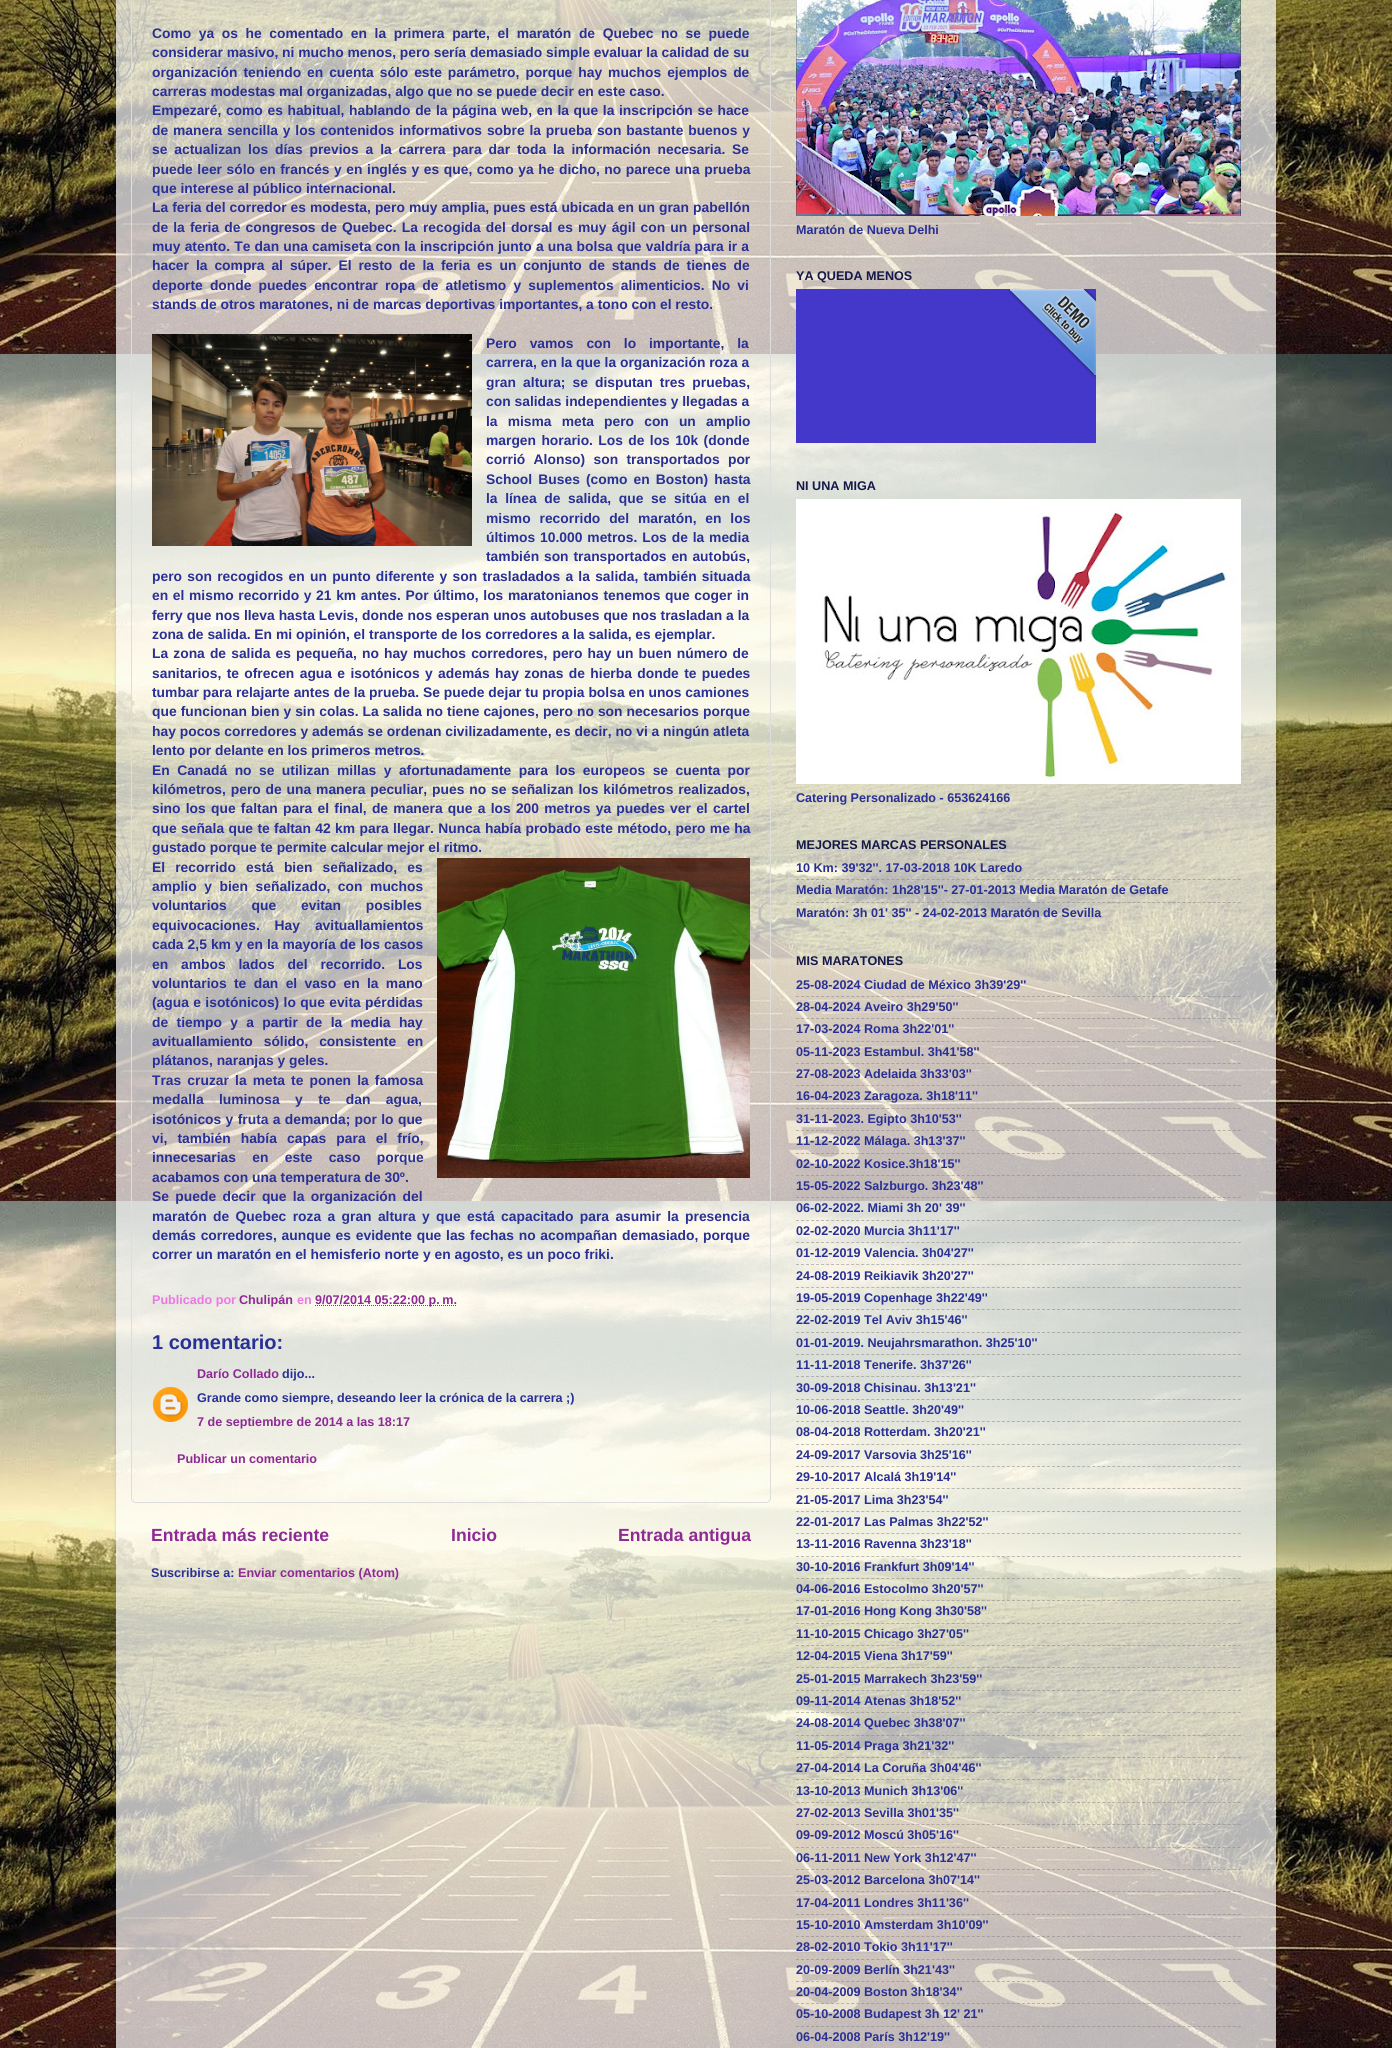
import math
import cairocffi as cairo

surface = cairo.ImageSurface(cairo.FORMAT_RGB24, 1392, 2048)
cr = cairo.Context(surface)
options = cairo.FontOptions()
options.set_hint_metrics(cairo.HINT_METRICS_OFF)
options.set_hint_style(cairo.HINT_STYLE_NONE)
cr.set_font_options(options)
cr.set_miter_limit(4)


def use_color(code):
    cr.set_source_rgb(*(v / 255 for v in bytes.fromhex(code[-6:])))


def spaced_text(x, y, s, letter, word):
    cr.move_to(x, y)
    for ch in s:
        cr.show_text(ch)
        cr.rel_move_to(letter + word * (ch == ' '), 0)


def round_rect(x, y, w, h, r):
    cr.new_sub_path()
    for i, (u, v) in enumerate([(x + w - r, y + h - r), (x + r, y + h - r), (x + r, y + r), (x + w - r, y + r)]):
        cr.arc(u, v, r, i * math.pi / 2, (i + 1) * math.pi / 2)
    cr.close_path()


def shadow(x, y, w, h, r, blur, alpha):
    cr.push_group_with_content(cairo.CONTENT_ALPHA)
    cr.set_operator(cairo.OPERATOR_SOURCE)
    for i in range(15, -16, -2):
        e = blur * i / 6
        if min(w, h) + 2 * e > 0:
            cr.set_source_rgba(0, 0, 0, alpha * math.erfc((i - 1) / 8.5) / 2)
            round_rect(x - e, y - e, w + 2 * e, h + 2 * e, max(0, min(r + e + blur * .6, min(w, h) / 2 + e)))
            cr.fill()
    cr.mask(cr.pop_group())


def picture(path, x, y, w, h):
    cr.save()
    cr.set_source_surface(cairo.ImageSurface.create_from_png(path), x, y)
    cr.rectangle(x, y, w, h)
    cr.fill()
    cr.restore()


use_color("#ffffff")
cr.paint()
picture("img1.png", 0, 0, 1392, 2048)
cr.save()
cr.set_fill_rule(cairo.FILL_RULE_EVEN_ODD)
cr.new_path()
cr.move_to(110, 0)
cr.line_to(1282, 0)
cr.line_to(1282, 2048)
cr.line_to(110, 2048)
cr.close_path()
cr.move_to(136, -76)
cr.line_to(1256, -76)
cr.curve_to(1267, -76, 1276, -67, 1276, -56)
cr.line_to(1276, 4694)
cr.line_to(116, 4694)
cr.line_to(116, -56)
cr.curve_to(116, -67, 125, -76, 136, -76)
cr.close_path()
cr.clip()
use_color("#000000")
shadow(116, -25, 1160, 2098, 20, 1.5, 0.15)
cr.restore()
cr.set_source_rgba(1, 1, 1, 0.7)
cr.rectangle(116, 0, 1160, 2048)
cr.fill()
round_rect(131.5, -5.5, 639, 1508, 4.5)
use_color("#dddddd")
cr.set_line_width(1)
cr.stroke()
cr.select_font_face("Liberation Sans", cairo.FONT_SLANT_NORMAL, cairo.FONT_WEIGHT_BOLD)
cr.set_font_size(13.85)
use_color("#293095")
spaced_text(152, 38, "Como ya os he comentado en la primera parte, el maratón de Quebec no se puede", 0, 3.75)
cr.move_to(152, 57)
cr.show_text("considerar masivo, ni mucho menos, pero sería demasiado simple evaluar la calidad de su")
spaced_text(152, 77, "organización teniendo en cuenta sólo este parámetro, porque hay muchos ejemplos de", 0, 2.1)
cr.move_to(152, 96)
cr.show_text("carreras modestas mal organizadas, algo que no se puede decir en este caso.")
spaced_text(152, 115, "Empezaré, como es habitual, hablando de la página web, en la que la inscripción se hace", 0, 0.75)
spaced_text(152, 135, "de manera sencilla y los contenidos informativos sobre la prueba son bastante buenos y", 0, 1)
spaced_text(152, 154, "se actualizan los días previos a la carrera para dar toda la información necesaria. Se", 0, 3)
spaced_text(152, 174, "puede leer sólo en francés y en inglés y es que, como ya he dicho, no parece una prueba", 0, 0.7)
cr.move_to(152, 193)
cr.show_text("que interese al público internacional.")
spaced_text(152, 212, "La feria del corredor es modesta, pero muy amplia, pues está ubicada en un gran pabellón", 0, 0.2)
spaced_text(152, 232, "de la feria de congresos de Quebec. La recogida del dorsal es muy ágil con un personal", 0, 1.25)
spaced_text(152, 251, "muy atento. Te dan una camiseta con la inscripción junto a una bolsa que valdría para ir a", 0, 0.3)
spaced_text(152, 270, "hacer la compra al súper. El resto de la feria es un conjunto de stands de tienes de", 0, 3.1)
spaced_text(152, 290, "deporte donde puedes encontrar ropa de atletismo y suplementos alimenticios. No vi", 0, 3.25)
cr.move_to(152, 309)
cr.show_text("stands de otros maratones, ni de marcas deportivas importantes, a tono con el resto.")
picture("img2.png", 152, 334, 320, 212)
spaced_text(486, 348, "Pero vamos con lo importante, la", 0, 9)
cr.move_to(486, 367)
cr.show_text("carrera, en la que la organización roza a")
spaced_text(486, 387, "gran altura; se disputan tres pruebas,", 0, 3.25)
cr.move_to(486, 406)
cr.show_text("con salidas independientes y llegadas a")
spaced_text(486, 426, "la misma meta pero con un amplio", 0, 6.25)
spaced_text(486, 445, "margen horario. Los de los 10k (donde", 0, 1.5)
spaced_text(486, 464, "corrió Alonso) son transportados por", 0, 4.5)
spaced_text(486, 484, "School Buses (como en Boston) hasta", 0, 2.25)
spaced_text(486, 503, "la línea de salida, que se sitúa en el", 0, 3.75)
spaced_text(486, 523, "mismo recorrido del maratón, en los", 0, 5)
spaced_text(486, 542, "últimos 10.000 metros. Los de la media", 0, 1)
spaced_text(486, 561, "también son transportados en autobús,", 0, 1)
spaced_text(152, 581, "pero son recogidos en un punto diferente y son trasladados a la salida, también situada", 0, 1.4)
spaced_text(152, 600, "en el mismo recorrido y 21 km antes. Por último, los maratonianos tenemos que coger in", 0, 0.8)
spaced_text(152, 620, "ferry que nos lleva hasta Levis, donde nos esperan unos autobuses que nos trasladan a la", 0, 0.1)
cr.move_to(152, 639)
cr.show_text("zona de salida. En mi opinión, el transporte de los corredores a la salida, es ejemplar.")
spaced_text(152, 658, "La zona de salida es pequeña, no hay muchos corredores, pero hay un buen número de", 0, 1.25)
spaced_text(152, 678, "sanitarios, te ofrecen agua e isotónicos y además hay zonas de hierba donde te puedes", 0, 1.5)
cr.move_to(152, 697)
cr.show_text("tumbar para relajarte antes de la prueba. Se puede dejar tu propia bolsa en unos camiones")
spaced_text(152, 716, "que funcionan bien y sin colas. La salida no tiene cajones, pero no son necesarios porque", 0, 0.2)
cr.move_to(152, 736)
cr.show_text("hay pocos corredores y además se ordenan civilizadamente, es decir, no vi a ningún atleta")
cr.move_to(152, 755)
cr.show_text("lento por delante en los primeros metros.")
spaced_text(152, 775, "En Canadá no se utilizan millas y afortunadamente para los europeos se cuenta por", 0, 3.6)
spaced_text(152, 794, "kilómetros, pero de una manera peculiar, pues no se señalizan los kilómetros realizados,", 0, 1)
spaced_text(152, 813, "sino los que faltan para el final, de manera que a los 200 metros ya puedes ver el cartel", 0, 1.4)
spaced_text(152, 833, "que señala que te faltan 42 km para llegar. Nunca había probado este método, pero me ha", 0, 0.5)
cr.move_to(152, 852)
cr.show_text("gustado porque te permite calcular mejor el ritmo.")
spaced_text(152, 872, "El recorrido está bien señalizado, es", 0, 6.25)
spaced_text(152, 891, "amplio y bien señalizado, con muchos", 0, 3.75)
spaced_text(152, 910, "voluntarios que evitan posibles", 0, 21)
spaced_text(152, 930, "equivocaciones. Hay avituallamientos", 0, 11)
spaced_text(152, 949, "cada 2,5 km y en la mayoría de los casos", 0, 0.2)
spaced_text(152, 969, "en ambos lados del recorrido. Los", 0, 9)
spaced_text(152, 988, "voluntarios te dan el vaso en la mano", 0, 3.5)
spaced_text(152, 1007, "(agua e isotónicos) lo que evita pérdidas", 0, 0.5)
spaced_text(152, 1027, "de tiempo y a partir de la media hay", 0, 4.5)
spaced_text(152, 1046, "avituallamiento sólido, consistente en", 0, 7)
cr.move_to(152, 1065)
cr.show_text("plátanos, naranjas y geles.")
picture("img3.png", 437, 858, 313, 320)
spaced_text(152, 1085, "Tras cruzar la meta te ponen la famosa", 0, 2.25)
spaced_text(152, 1104, "medalla luminosa y te dan agua,", 0, 11.5)
spaced_text(152, 1124, "isotónicos y fruta a demanda; por lo que", 0, 0.5)
spaced_text(152, 1143, "vi, también había capas para el frío,", 0, 6.25)
spaced_text(152, 1162, "innecesarias en este caso porque", 0, 12.5)
cr.move_to(152, 1182)
cr.show_text("acabamos con una temperatura de 30º.")
spaced_text(152, 1201, "Se puede decir que la organización del", 0, 2.5)
spaced_text(152, 1221, "maratón de Quebec roza a gran altura y que está capacitado para asumir la presencia", 0, 2.5)
spaced_text(152, 1240, "demás corredores, aunque es evidente que las fechas no acompañan demasiado, porque", 0, 0.9)
cr.move_to(152, 1259)
cr.show_text("correr un maratón en el hemisferio norte y en agosto, es un poco friki.")
cr.set_font_size(12.6)
use_color("#ee77e5")
cr.move_to(152, 1304)
cr.show_text("Publicado por")
use_color("#8e2995")
cr.move_to(239, 1304)
cr.show_text("Chulipán")
use_color("#ee77e5")
cr.move_to(297, 1304)
cr.show_text("en")
cr.new_path()
cr.move_to(315, 1305.5)
cr.line_to(457, 1305.5)
use_color("#8e2995")
cr.set_dash([1, 1])
cr.stroke()
cr.move_to(315, 1304)
cr.show_text("9/07/2014 05:22:00 p. m.")
cr.set_font_size(20)
use_color("#293095")
cr.move_to(152, 1349)
cr.show_text("1 comentario:")
cr.set_font_size(12.6)
use_color("#8e2995")
cr.move_to(197, 1378)
cr.show_text("Darío Collado")
use_color("#293095")
cr.move_to(282, 1378)
cr.show_text("dijo...")
picture("img4.png", 153, 1387, 35, 35)
cr.move_to(197, 1402)
cr.show_text("Grande como siempre, deseando leer la crónica de la carrera ;)")
use_color("#8e2995")
cr.move_to(197, 1426)
cr.show_text("7 de septiembre de 2014 a las 18:17")
cr.move_to(177, 1463)
cr.show_text("Publicar un comentario")
cr.set_font_size(17.6)
cr.move_to(151, 1541)
cr.show_text("Entrada más reciente")
cr.move_to(451, 1541)
cr.show_text("Inicio")
cr.move_to(618, 1541)
cr.show_text("Entrada antigua")
cr.set_font_size(12.6)
use_color("#293095")
cr.move_to(151, 1577)
cr.show_text("Suscribirse a:")
use_color("#8e2995")
cr.move_to(238, 1577)
cr.show_text("Enviar comentarios (Atom)")
picture("img5.png", 796, 0, 445, 216)
use_color("#293095")
cr.move_to(796, 234)
cr.show_text("Maratón de Nueva Delhi")
use_color("#14184a")
cr.move_to(796, 280)
cr.show_text("YA QUEDA MENOS")
picture("img6.png", 796, 289, 300, 154)
cr.move_to(796, 490)
cr.show_text("NI UNA MIGA")
picture("img7.png", 796, 499, 445, 285)
use_color("#293095")
cr.move_to(796, 802)
cr.show_text("Catering Personalizado - 653624166")
use_color("#14184a")
cr.move_to(796, 849)
cr.show_text("MEJORES MARCAS PERSONALES")
use_color("#293095")
cr.move_to(796, 872)
cr.show_text("10 Km: 39'32''. 17-03-2018 10K Laredo")
cr.new_path()
cr.move_to(796, 879.5)
cr.line_to(1241, 879.5)
cr.set_source_rgba(0.502, 0.502, 0.502, 0.5)
cr.set_dash([3, 2.02])
cr.stroke()
use_color("#293095")
cr.move_to(796, 894)
cr.show_text("Media Maratón: 1h28'15''- 27-01-2013 Media Maratón de Getafe")
cr.new_path()
cr.move_to(796, 902.5)
cr.line_to(1241, 902.5)
cr.set_source_rgba(0.502, 0.502, 0.502, 0.5)
cr.stroke()
use_color("#293095")
cr.move_to(796, 917)
cr.show_text("Maratón: 3h 01' 35'' - 24-02-2013 Maratón de Sevilla")
use_color("#14184a")
cr.move_to(796, 965)
cr.show_text("MIS MARATONES")
use_color("#293095")
cr.move_to(796, 989)
cr.show_text("25-08-2024 Ciudad de México 3h39'29''")
cr.new_path()
cr.move_to(796, 996.5)
cr.line_to(1241, 996.5)
cr.set_source_rgba(0.502, 0.502, 0.502, 0.5)
cr.stroke()
use_color("#293095")
cr.move_to(796, 1011)
cr.show_text("28-04-2024 Aveiro 3h29'50''")
cr.new_path()
cr.move_to(796, 1018.5)
cr.line_to(1241, 1018.5)
cr.set_source_rgba(0.502, 0.502, 0.502, 0.5)
cr.stroke()
use_color("#293095")
cr.move_to(796, 1033)
cr.show_text("17-03-2024 Roma 3h22'01''")
cr.new_path()
cr.move_to(796, 1041.5)
cr.line_to(1241, 1041.5)
cr.set_source_rgba(0.502, 0.502, 0.502, 0.5)
cr.stroke()
use_color("#293095")
cr.move_to(796, 1056)
cr.show_text("05-11-2023 Estambul. 3h41'58''")
cr.new_path()
cr.move_to(796, 1063.5)
cr.line_to(1241, 1063.5)
cr.set_source_rgba(0.502, 0.502, 0.502, 0.5)
cr.stroke()
use_color("#293095")
cr.move_to(796, 1078)
cr.show_text("27-08-2023 Adelaida 3h33'03''")
cr.new_path()
cr.move_to(796, 1085.5)
cr.line_to(1241, 1085.5)
cr.set_source_rgba(0.502, 0.502, 0.502, 0.5)
cr.stroke()
use_color("#293095")
cr.move_to(796, 1100)
cr.show_text("16-04-2023 Zaragoza. 3h18'11''")
cr.new_path()
cr.move_to(796, 1108.5)
cr.line_to(1241, 1108.5)
cr.set_source_rgba(0.502, 0.502, 0.502, 0.5)
cr.stroke()
use_color("#293095")
cr.move_to(796, 1123)
cr.show_text("31-11-2023. Egipto 3h10'53''")
cr.new_path()
cr.move_to(796, 1130.5)
cr.line_to(1241, 1130.5)
cr.set_source_rgba(0.502, 0.502, 0.502, 0.5)
cr.stroke()
use_color("#293095")
cr.move_to(796, 1145)
cr.show_text("11-12-2022 Málaga. 3h13'37''")
cr.new_path()
cr.move_to(796, 1153.5)
cr.line_to(1241, 1153.5)
cr.set_source_rgba(0.502, 0.502, 0.502, 0.5)
cr.stroke()
use_color("#293095")
cr.move_to(796, 1168)
cr.show_text("02-10-2022 Kosice.3h18'15''")
cr.new_path()
cr.move_to(796, 1175.5)
cr.line_to(1241, 1175.5)
cr.set_source_rgba(0.502, 0.502, 0.502, 0.5)
cr.stroke()
use_color("#293095")
cr.move_to(796, 1190)
cr.show_text("15-05-2022 Salzburgo. 3h23'48''")
cr.new_path()
cr.move_to(796, 1197.5)
cr.line_to(1241, 1197.5)
cr.set_source_rgba(0.502, 0.502, 0.502, 0.5)
cr.stroke()
use_color("#293095")
cr.move_to(796, 1212)
cr.show_text("06-02-2022. Miami 3h 20' 39''")
cr.new_path()
cr.move_to(796, 1220.5)
cr.line_to(1241, 1220.5)
cr.set_source_rgba(0.502, 0.502, 0.502, 0.5)
cr.stroke()
use_color("#293095")
cr.move_to(796, 1235)
cr.show_text("02-02-2020 Murcia 3h11'17''")
cr.new_path()
cr.move_to(796, 1242.5)
cr.line_to(1241, 1242.5)
cr.set_source_rgba(0.502, 0.502, 0.502, 0.5)
cr.stroke()
use_color("#293095")
cr.move_to(796, 1257)
cr.show_text("01-12-2019 Valencia. 3h04'27''")
cr.new_path()
cr.move_to(796, 1264.5)
cr.line_to(1241, 1264.5)
cr.set_source_rgba(0.502, 0.502, 0.502, 0.5)
cr.stroke()
use_color("#293095")
cr.move_to(796, 1280)
cr.show_text("24-08-2019 Reikiavik 3h20'27''")
cr.new_path()
cr.move_to(796, 1287.5)
cr.line_to(1241, 1287.5)
cr.set_source_rgba(0.502, 0.502, 0.502, 0.5)
cr.stroke()
use_color("#293095")
cr.move_to(796, 1302)
cr.show_text("19-05-2019 Copenhage 3h22'49''")
cr.new_path()
cr.move_to(796, 1309.5)
cr.line_to(1241, 1309.5)
cr.set_source_rgba(0.502, 0.502, 0.502, 0.5)
cr.stroke()
use_color("#293095")
cr.move_to(796, 1324)
cr.show_text("22-02-2019 Tel Aviv 3h15'46''")
cr.new_path()
cr.move_to(796, 1332.5)
cr.line_to(1241, 1332.5)
cr.set_source_rgba(0.502, 0.502, 0.502, 0.5)
cr.stroke()
use_color("#293095")
cr.move_to(796, 1347)
cr.show_text("01-01-2019. Neujahrsmarathon. 3h25'10''")
cr.new_path()
cr.move_to(796, 1354.5)
cr.line_to(1241, 1354.5)
cr.set_source_rgba(0.502, 0.502, 0.502, 0.5)
cr.stroke()
use_color("#293095")
cr.move_to(796, 1369)
cr.show_text("11-11-2018 Tenerife. 3h37'26''")
cr.new_path()
cr.move_to(796, 1376.5)
cr.line_to(1241, 1376.5)
cr.set_source_rgba(0.502, 0.502, 0.502, 0.5)
cr.stroke()
use_color("#293095")
cr.move_to(796, 1392)
cr.show_text("30-09-2018 Chisinau. 3h13'21''")
cr.new_path()
cr.move_to(796, 1399.5)
cr.line_to(1241, 1399.5)
cr.set_source_rgba(0.502, 0.502, 0.502, 0.5)
cr.stroke()
use_color("#293095")
cr.move_to(796, 1414)
cr.show_text("10-06-2018 Seattle. 3h20'49''")
cr.new_path()
cr.move_to(796, 1421.5)
cr.line_to(1241, 1421.5)
cr.set_source_rgba(0.502, 0.502, 0.502, 0.5)
cr.stroke()
use_color("#293095")
cr.move_to(796, 1436)
cr.show_text("08-04-2018 Rotterdam. 3h20'21''")
cr.new_path()
cr.move_to(796, 1444.5)
cr.line_to(1241, 1444.5)
cr.set_source_rgba(0.502, 0.502, 0.502, 0.5)
cr.stroke()
use_color("#293095")
cr.move_to(796, 1459)
cr.show_text("24-09-2017 Varsovia 3h25'16''")
cr.new_path()
cr.move_to(796, 1466.5)
cr.line_to(1241, 1466.5)
cr.set_source_rgba(0.502, 0.502, 0.502, 0.5)
cr.stroke()
use_color("#293095")
cr.move_to(796, 1481)
cr.show_text("29-10-2017 Alcalá 3h19'14''")
cr.new_path()
cr.move_to(796, 1488.5)
cr.line_to(1241, 1488.5)
cr.set_source_rgba(0.502, 0.502, 0.502, 0.5)
cr.stroke()
use_color("#293095")
cr.move_to(796, 1504)
cr.show_text("21-05-2017 Lima 3h23'54''")
cr.new_path()
cr.move_to(796, 1511.5)
cr.line_to(1241, 1511.5)
cr.set_source_rgba(0.502, 0.502, 0.502, 0.5)
cr.stroke()
use_color("#293095")
cr.move_to(796, 1526)
cr.show_text("22-01-2017 Las Palmas 3h22'52''")
cr.new_path()
cr.move_to(796, 1533.5)
cr.line_to(1241, 1533.5)
cr.set_source_rgba(0.502, 0.502, 0.502, 0.5)
cr.stroke()
use_color("#293095")
cr.move_to(796, 1548)
cr.show_text("13-11-2016 Ravenna 3h23'18''")
cr.new_path()
cr.move_to(796, 1556.5)
cr.line_to(1241, 1556.5)
cr.set_source_rgba(0.502, 0.502, 0.502, 0.5)
cr.stroke()
use_color("#293095")
cr.move_to(796, 1571)
cr.show_text("30-10-2016 Frankfurt 3h09'14''")
cr.new_path()
cr.move_to(796, 1578.5)
cr.line_to(1241, 1578.5)
cr.set_source_rgba(0.502, 0.502, 0.502, 0.5)
cr.stroke()
use_color("#293095")
cr.move_to(796, 1593)
cr.show_text("04-06-2016 Estocolmo 3h20'57''")
cr.new_path()
cr.move_to(796, 1600.5)
cr.line_to(1241, 1600.5)
cr.set_source_rgba(0.502, 0.502, 0.502, 0.5)
cr.stroke()
use_color("#293095")
cr.move_to(796, 1615)
cr.show_text("17-01-2016 Hong Kong 3h30'58''")
cr.new_path()
cr.move_to(796, 1623.5)
cr.line_to(1241, 1623.5)
cr.set_source_rgba(0.502, 0.502, 0.502, 0.5)
cr.stroke()
use_color("#293095")
cr.move_to(796, 1638)
cr.show_text("11-10-2015 Chicago 3h27'05''")
cr.new_path()
cr.move_to(796, 1645.5)
cr.line_to(1241, 1645.5)
cr.set_source_rgba(0.502, 0.502, 0.502, 0.5)
cr.stroke()
use_color("#293095")
cr.move_to(796, 1660)
cr.show_text("12-04-2015 Viena 3h17'59''")
cr.new_path()
cr.move_to(796, 1667.5)
cr.line_to(1241, 1667.5)
cr.set_source_rgba(0.502, 0.502, 0.502, 0.5)
cr.stroke()
use_color("#293095")
cr.move_to(796, 1683)
cr.show_text("25-01-2015 Marrakech 3h23'59''")
cr.new_path()
cr.move_to(796, 1690.5)
cr.line_to(1241, 1690.5)
cr.set_source_rgba(0.502, 0.502, 0.502, 0.5)
cr.stroke()
use_color("#293095")
cr.move_to(796, 1705)
cr.show_text("09-11-2014 Atenas 3h18'52''")
cr.new_path()
cr.move_to(796, 1712.5)
cr.line_to(1241, 1712.5)
cr.set_source_rgba(0.502, 0.502, 0.502, 0.5)
cr.stroke()
use_color("#293095")
cr.move_to(796, 1727)
cr.show_text("24-08-2014 Quebec 3h38'07''")
cr.new_path()
cr.move_to(796, 1735.5)
cr.line_to(1241, 1735.5)
cr.set_source_rgba(0.502, 0.502, 0.502, 0.5)
cr.stroke()
use_color("#293095")
cr.move_to(796, 1750)
cr.show_text("11-05-2014 Praga 3h21'32''")
cr.new_path()
cr.move_to(796, 1757.5)
cr.line_to(1241, 1757.5)
cr.set_source_rgba(0.502, 0.502, 0.502, 0.5)
cr.stroke()
use_color("#293095")
cr.move_to(796, 1772)
cr.show_text("27-04-2014 La Coruña 3h04'46''")
cr.new_path()
cr.move_to(796, 1779.5)
cr.line_to(1241, 1779.5)
cr.set_source_rgba(0.502, 0.502, 0.502, 0.5)
cr.stroke()
use_color("#293095")
cr.move_to(796, 1795)
cr.show_text("13-10-2013 Munich 3h13'06''")
cr.new_path()
cr.move_to(796, 1802.5)
cr.line_to(1241, 1802.5)
cr.set_source_rgba(0.502, 0.502, 0.502, 0.5)
cr.stroke()
use_color("#293095")
cr.move_to(796, 1817)
cr.show_text("27-02-2013 Sevilla 3h01'35''")
cr.new_path()
cr.move_to(796, 1824.5)
cr.line_to(1241, 1824.5)
cr.set_source_rgba(0.502, 0.502, 0.502, 0.5)
cr.stroke()
use_color("#293095")
cr.move_to(796, 1839)
cr.show_text("09-09-2012 Moscú 3h05'16''")
cr.new_path()
cr.move_to(796, 1847.5)
cr.line_to(1241, 1847.5)
cr.set_source_rgba(0.502, 0.502, 0.502, 0.5)
cr.stroke()
use_color("#293095")
cr.move_to(796, 1862)
cr.show_text("06-11-2011 New York 3h12'47''")
cr.new_path()
cr.move_to(796, 1869.5)
cr.line_to(1241, 1869.5)
cr.set_source_rgba(0.502, 0.502, 0.502, 0.5)
cr.stroke()
use_color("#293095")
cr.move_to(796, 1884)
cr.show_text("25-03-2012 Barcelona 3h07'14''")
cr.new_path()
cr.move_to(796, 1891.5)
cr.line_to(1241, 1891.5)
cr.set_source_rgba(0.502, 0.502, 0.502, 0.5)
cr.stroke()
use_color("#293095")
cr.move_to(796, 1907)
cr.show_text("17-04-2011 Londres 3h11'36''")
cr.new_path()
cr.move_to(796, 1914.5)
cr.line_to(1241, 1914.5)
cr.set_source_rgba(0.502, 0.502, 0.502, 0.5)
cr.stroke()
use_color("#293095")
cr.move_to(796, 1929)
cr.show_text("15-10-2010 Amsterdam 3h10'09''")
cr.new_path()
cr.move_to(796, 1936.5)
cr.line_to(1241, 1936.5)
cr.set_source_rgba(0.502, 0.502, 0.502, 0.5)
cr.stroke()
use_color("#293095")
cr.move_to(796, 1951)
cr.show_text("28-02-2010 Tokio 3h11'17''")
cr.new_path()
cr.move_to(796, 1959.5)
cr.line_to(1241, 1959.5)
cr.set_source_rgba(0.502, 0.502, 0.502, 0.5)
cr.stroke()
use_color("#293095")
cr.move_to(796, 1974)
cr.show_text("20-09-2009 Berlín 3h21'43''")
cr.new_path()
cr.move_to(796, 1981.5)
cr.line_to(1241, 1981.5)
cr.set_source_rgba(0.502, 0.502, 0.502, 0.5)
cr.stroke()
use_color("#293095")
cr.move_to(796, 1996)
cr.show_text("20-04-2009 Boston 3h18'34''")
cr.new_path()
cr.move_to(796, 2003.5)
cr.line_to(1241, 2003.5)
cr.set_source_rgba(0.502, 0.502, 0.502, 0.5)
cr.stroke()
use_color("#293095")
cr.move_to(796, 2018)
cr.show_text("05-10-2008 Budapest 3h 12' 21''")
cr.new_path()
cr.move_to(796, 2026.5)
cr.line_to(1241, 2026.5)
cr.set_source_rgba(0.502, 0.502, 0.502, 0.5)
cr.stroke()
use_color("#293095")
cr.move_to(796, 2041)
cr.show_text("06-04-2008 París 3h12'19''")
surface.write_to_png("result.png")
